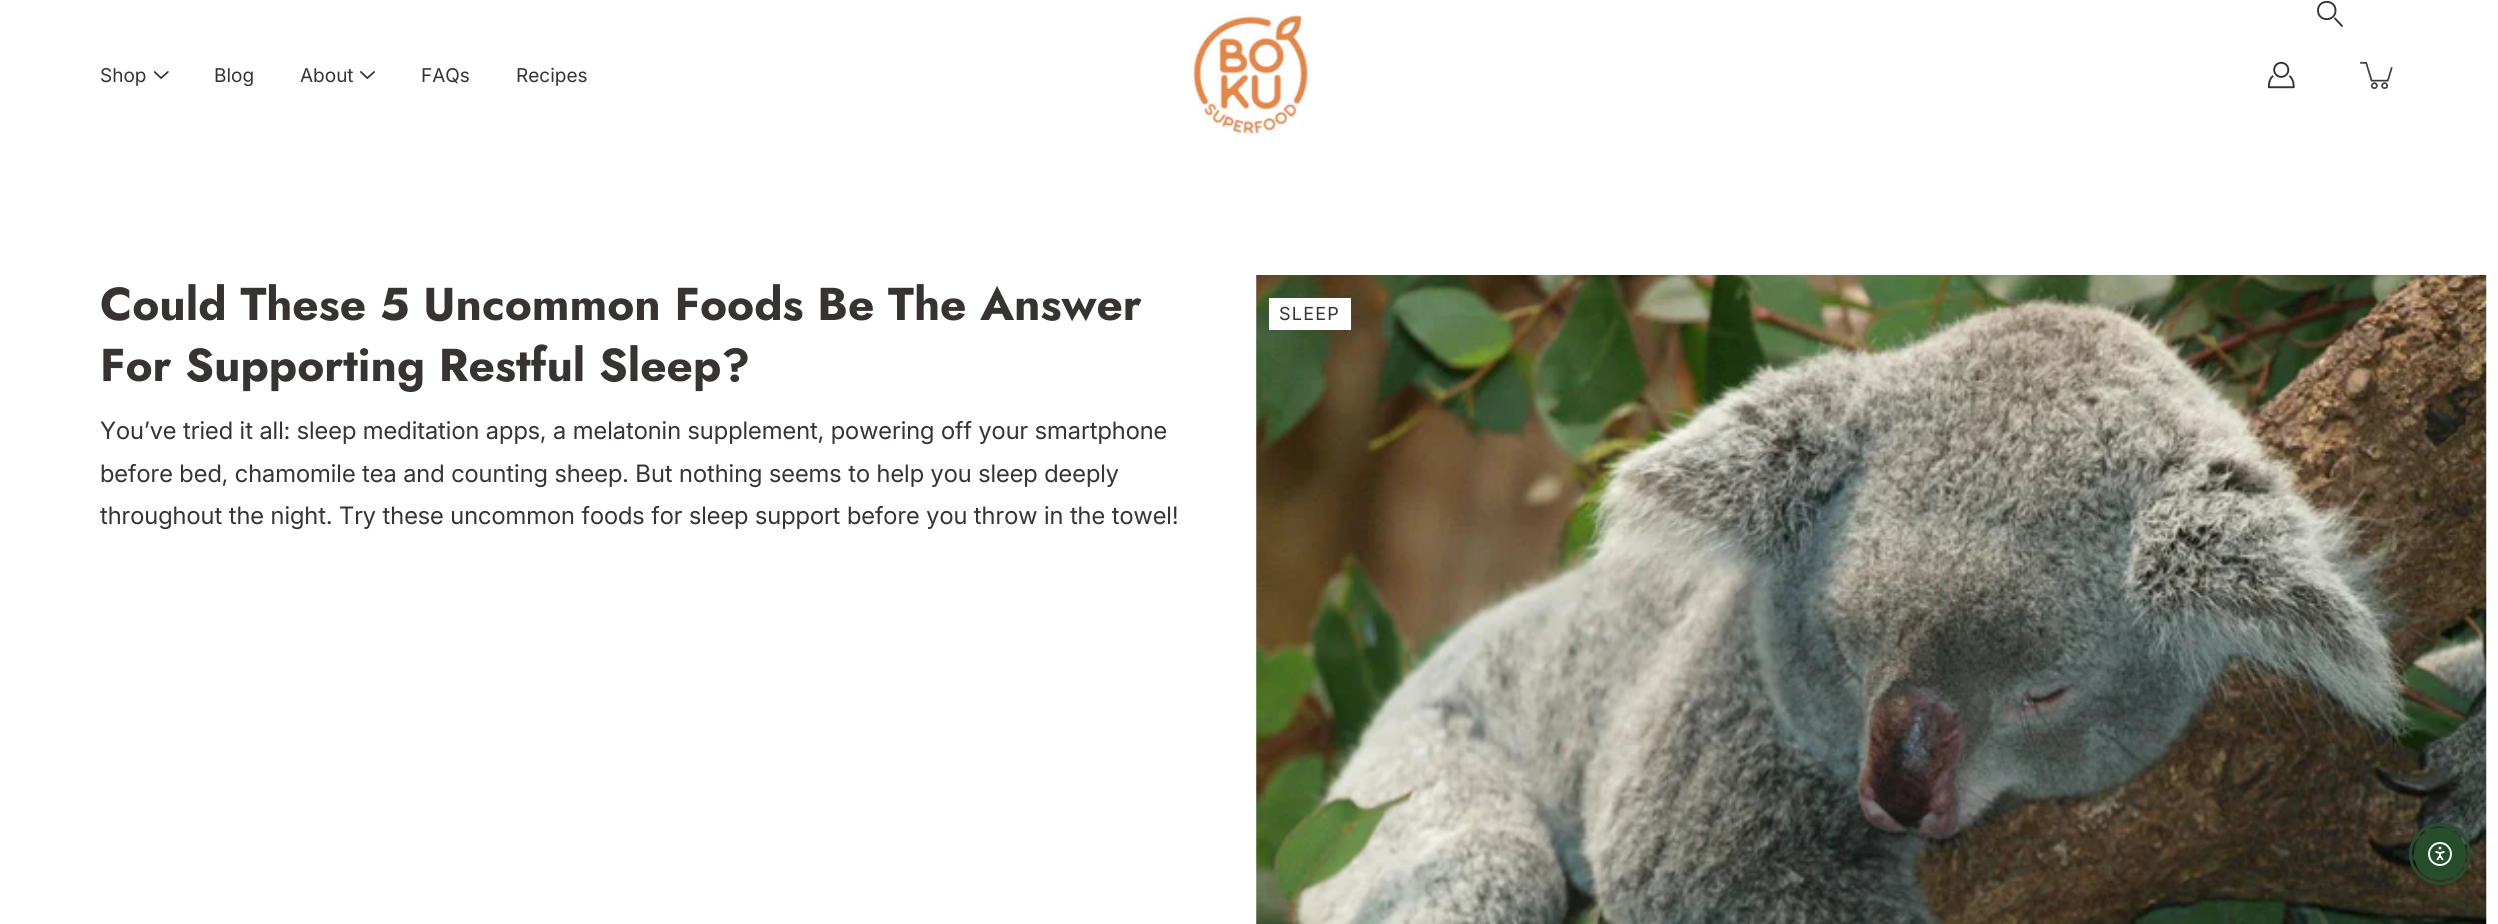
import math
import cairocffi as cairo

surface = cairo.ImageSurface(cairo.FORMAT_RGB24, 2498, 924)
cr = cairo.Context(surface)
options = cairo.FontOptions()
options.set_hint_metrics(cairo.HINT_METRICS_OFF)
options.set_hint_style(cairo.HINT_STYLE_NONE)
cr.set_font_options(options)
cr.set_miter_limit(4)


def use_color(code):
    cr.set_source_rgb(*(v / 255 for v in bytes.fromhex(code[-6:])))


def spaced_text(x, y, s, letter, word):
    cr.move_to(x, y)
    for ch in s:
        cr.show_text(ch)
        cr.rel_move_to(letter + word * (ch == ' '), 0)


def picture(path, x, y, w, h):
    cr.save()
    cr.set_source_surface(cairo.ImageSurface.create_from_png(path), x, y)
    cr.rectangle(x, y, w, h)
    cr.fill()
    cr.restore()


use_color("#ffffff")
cr.paint()
cr.select_font_face("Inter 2")
cr.set_font_size(19)
use_color("#383333")
cr.move_to(100, 82)
cr.show_text("Shop")
picture("img1.png", 154, 71, 15, 8)
cr.move_to(214, 82)
cr.show_text("Blog")
cr.move_to(300, 82)
cr.show_text("About")
picture("img2.png", 360, 71, 15, 8)
cr.move_to(421, 82)
cr.show_text("FAQs")
cr.move_to(516, 82)
cr.show_text("Recipes")
cr.new_path()
cr.move_to(2335.5, 10.5)
cr.curve_to(2335.5, 22, 2318, 22, 2318, 10.5)
cr.curve_to(2318, -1, 2335.5, -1, 2335.5, 10.5)
cr.close_path()
cr.set_line_width(1.9)
cr.stroke()
cr.new_path()
cr.move_to(2335, 18.5)
cr.line_to(2342, 26)
cr.set_line_cap(cairo.LINE_CAP_ROUND)
cr.stroke()
picture("img3.png", 2268, 61, 27, 28)
picture("img4.png", 2360, 61, 33, 28)
picture("img5.png", 1188, 9, 121, 129)
cr.select_font_face("Jost", cairo.FONT_SLANT_NORMAL, cairo.FONT_WEIGHT_BOLD)
cr.set_font_size(46)
cr.move_to(100, 320)
cr.show_text("Could These 5 Uncommon Foods Be The Answer")
cr.move_to(100, 381)
cr.show_text("For Supporting Restful Sleep?")
cr.select_font_face("Inter")
cr.set_font_size(24)
cr.move_to(100, 439)
cr.show_text("You’ve tried it all: sleep meditation apps, a melatonin supplement, powering off your smartphone")
cr.move_to(100, 482)
cr.show_text("before bed, chamomile tea and counting sheep. But nothing seems to help you sleep deeply")
cr.move_to(100, 524)
cr.show_text("throughout the night. Try these uncommon foods for sleep support before you throw in the towel!")
picture("img6.png", 1256, 275, 1231, 649)
use_color("#ffffff")
cr.rectangle(1269, 298, 82, 32)
cr.fill()
cr.select_font_face("Inter 2")
cr.set_font_size(18)
use_color("#383333")
spaced_text(1279, 320, "SLEEP", 1.25, 0)
cr.new_path()
cr.arc(2440, 854, 29.5, 0, 2 * math.pi)
use_color("#264e2d")
cr.set_line_width(3)
cr.set_line_cap(cairo.LINE_CAP_BUTT)
cr.stroke()
cr.arc(2440, 854, 25.5, 0, 2 * math.pi)
cr.fill_preserve()
cr.set_line_width(1)
cr.stroke()
picture("img7.png", 2428, 842, 24, 24)
surface.write_to_png("result.png")
